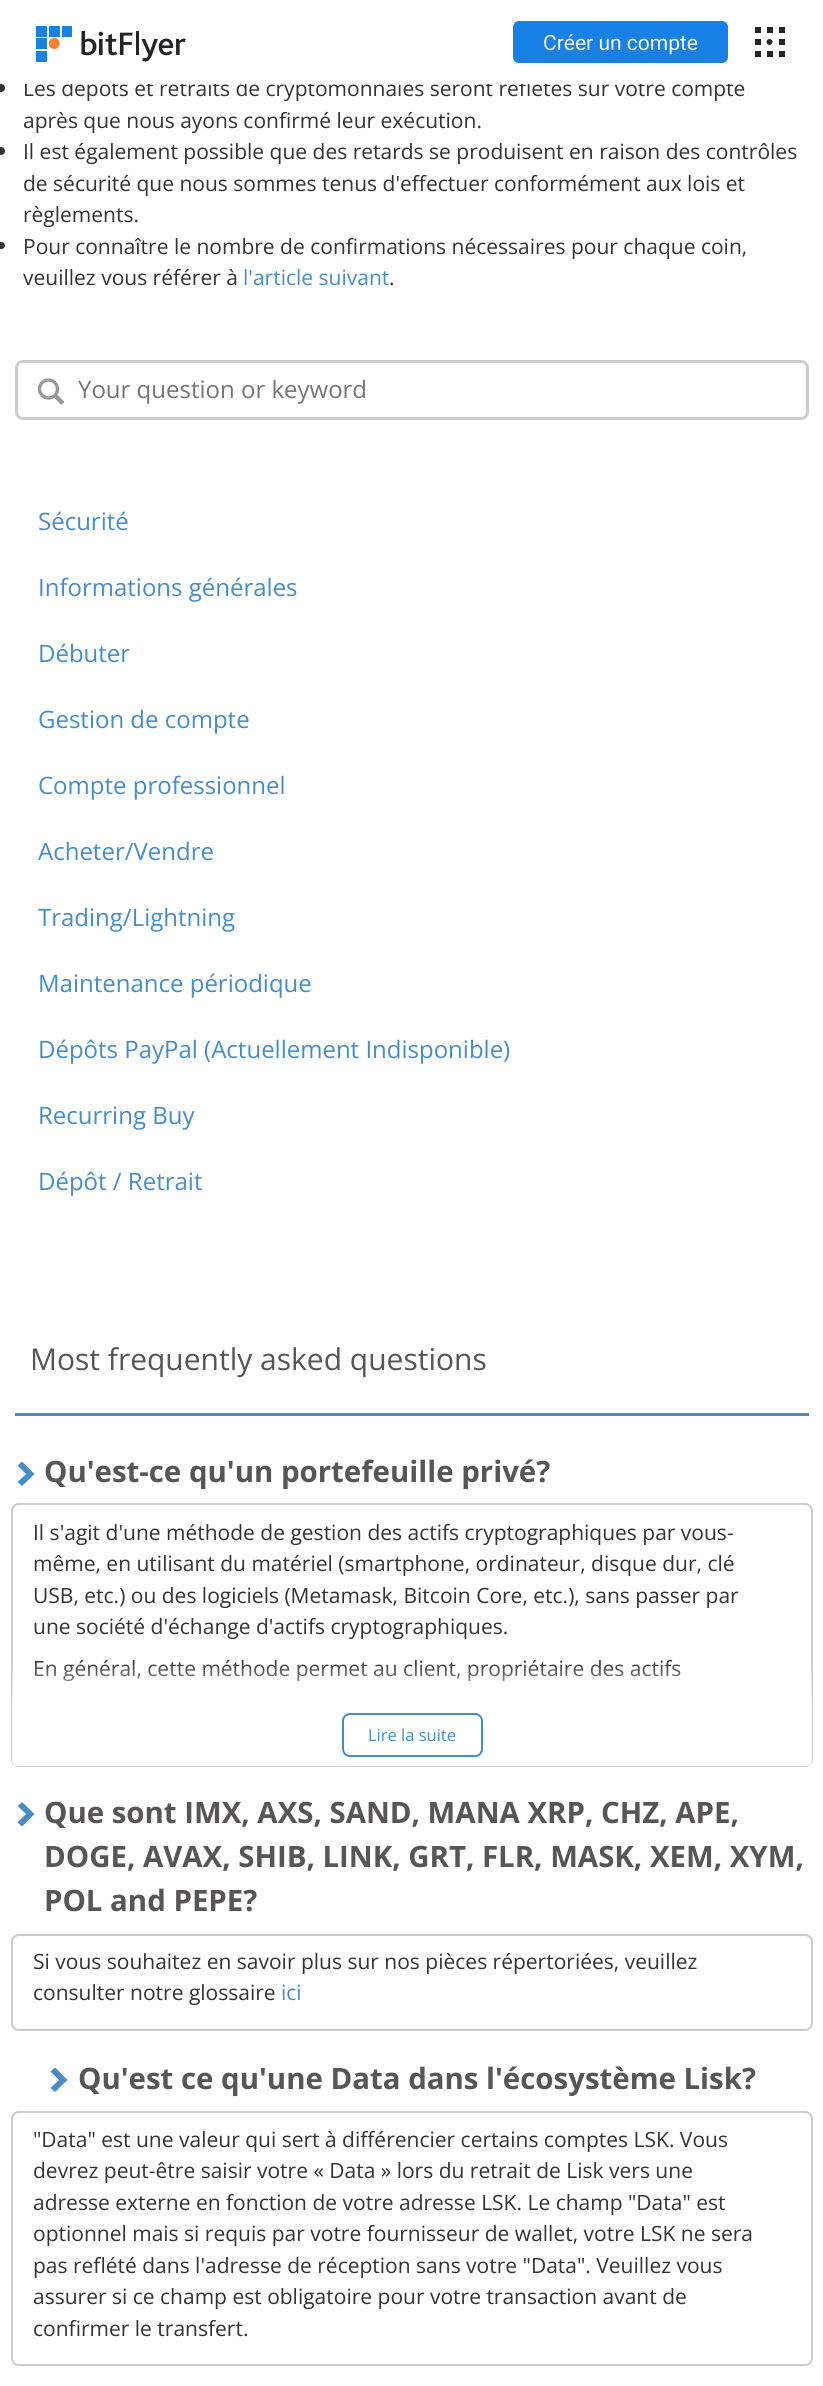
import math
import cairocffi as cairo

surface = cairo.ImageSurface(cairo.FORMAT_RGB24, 823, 2386)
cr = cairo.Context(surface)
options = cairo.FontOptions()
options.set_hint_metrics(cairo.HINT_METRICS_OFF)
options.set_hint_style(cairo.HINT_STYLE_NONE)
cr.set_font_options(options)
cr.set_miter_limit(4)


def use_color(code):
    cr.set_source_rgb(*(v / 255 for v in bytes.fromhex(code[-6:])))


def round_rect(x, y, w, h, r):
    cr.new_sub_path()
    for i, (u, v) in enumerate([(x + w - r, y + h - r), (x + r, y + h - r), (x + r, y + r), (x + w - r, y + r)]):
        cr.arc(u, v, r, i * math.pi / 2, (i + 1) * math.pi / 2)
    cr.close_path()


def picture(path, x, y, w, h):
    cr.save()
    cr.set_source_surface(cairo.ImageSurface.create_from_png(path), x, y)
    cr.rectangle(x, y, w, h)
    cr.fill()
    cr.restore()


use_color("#ffffff")
cr.paint()
cr.select_font_face("Open Sans")
cr.set_font_size(21)
use_color("#333333")
cr.move_to(23, 96)
cr.show_text("Les dépôts et retraits de cryptomonnaies seront reflétés sur votre compte")
use_color("#ffffff")
cr.rectangle(24, 79, 706, 5)
cr.fill()
picture("img1.png", 36, 26, 150, 36)
use_color("#1980e5")
round_rect(513, 21, 215, 42, 6)
cr.fill()
cr.select_font_face("Roboto")
use_color("#f5f7fa")
cr.move_to(543, 50)
cr.show_text("Créer un compte")
picture("img2.png", 755, 27, 30, 30)
use_color("#333333")
cr.arc(1, 88, 4, 0, 2 * math.pi)
cr.fill()
cr.select_font_face("Open Sans")
cr.move_to(23, 128)
cr.show_text("après que nous ayons confirmé leur exécution.")
cr.new_path()
cr.arc(1, 151, 4, 0, 2 * math.pi)
cr.fill()
cr.move_to(23, 159)
cr.show_text("Il est également possible que des retards se produisent en raison des contrôles")
cr.move_to(23, 191)
cr.show_text("de sécurité que nous sommes tenus d'effectuer conformément aux lois et")
cr.move_to(23, 222)
cr.show_text("règlements.")
round_rect(-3, 242, 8, 7, 3.5)
cr.fill()
cr.move_to(23, 254)
cr.show_text("Pour connaître le nombre de confirmations nécessaires pour chaque coin,")
cr.move_to(23, 285)
cr.show_text("veuillez vous référer à")
use_color("#468ccb")
cr.move_to(243, 285)
cr.show_text("l'article suivant")
use_color("#333333")
cr.move_to(389, 285)
cr.show_text(".")
picture("img3.png", 37, 378, 28, 27)
round_rect(16.5, 361.5, 791, 57, 6.5)
use_color("#cccccc")
cr.set_line_width(3)
cr.stroke()
cr.set_font_size(24)
use_color("#757575")
cr.move_to(78, 398)
cr.show_text("Your question or keyword")
use_color("#468ccb")
cr.move_to(38, 530)
cr.show_text("Sécurité")
cr.move_to(38, 596)
cr.show_text("Informations générales")
cr.move_to(38, 662)
cr.show_text("Débuter")
cr.move_to(38, 728)
cr.show_text("Gestion de compte")
cr.move_to(38, 794)
cr.show_text("Compte professionnel")
cr.move_to(38, 860)
cr.show_text("Acheter/Vendre")
cr.move_to(38, 926)
cr.show_text("Trading/Lightning")
cr.move_to(38, 992)
cr.show_text("Maintenance périodique")
cr.move_to(38, 1058)
cr.show_text("Dépôts PayPal (Actuellement Indisponible)")
cr.move_to(38, 1124)
cr.show_text("Recurring Buy")
cr.move_to(38, 1190)
cr.show_text("Dépôt / Retrait")
cr.rectangle(15, 1413, 794, 3)
cr.fill()
cr.set_font_size(30)
use_color("#575655")
cr.move_to(30, 1370)
cr.show_text("Most frequently asked questions")
use_color("#468ccb")
cr.new_path()
cr.move_to(17.5, 1482)
cr.line_to(26, 1474)
cr.line_to(17.5, 1465.5)
cr.line_to(22, 1461.5)
cr.line_to(34.5, 1474)
cr.line_to(22, 1486)
cr.close_path()
cr.fill()
cr.select_font_face("Open Sans", cairo.FONT_SLANT_NORMAL, cairo.FONT_WEIGHT_BOLD)
cr.set_font_size(29.4)
use_color("#575655")
cr.move_to(44, 1482)
cr.show_text("Qu'est-ce qu'un portefeuille privé?")
round_rect(12, 1504, 800, 262, 7)
use_color("#cccccc")
cr.set_line_width(2)
cr.stroke()
cr.select_font_face("Open Sans")
cr.set_font_size(21)
use_color("#333333")
cr.move_to(33, 1540)
cr.show_text("Il s'agit d'une méthode de gestion des actifs cryptographiques par vous-")
cr.move_to(33, 1571)
cr.show_text("même, en utilisant du matériel (smartphone, ordinateur, disque dur, clé")
cr.move_to(33, 1603)
cr.show_text("USB, etc.) ou des logiciels (Metamask, Bitcoin Core, etc.), sans passer par")
cr.move_to(33, 1634)
cr.show_text("une société d'échange d'actifs cryptographiques.")
cr.move_to(33, 1676)
cr.show_text("En général, cette méthode permet au client, propriétaire des actifs")
gradient = cairo.LinearGradient(412, 1661, 412, 1766)
gradient.add_color_stop_rgba(0, 1, 1, 1, 0)
gradient.add_color_stop_rgba(0.5, 1, 1, 1, 1)
cr.set_source(gradient)
cr.new_path()
cr.move_to(12, 1661)
cr.line_to(812, 1661)
cr.line_to(812, 1760)
cr.curve_to(812, 1763.5, 809.5, 1766, 806, 1766)
cr.line_to(18, 1766)
cr.curve_to(14.5, 1766, 12, 1763.5, 12, 1760)
cr.close_path()
cr.fill()
round_rect(343, 1714, 139, 42, 7)
use_color("#468ccb")
cr.stroke()
cr.set_font_size(16.5)
cr.move_to(368, 1741)
cr.show_text("Lire la suite")
cr.new_path()
cr.move_to(17.5, 1822.5)
cr.line_to(26, 1814)
cr.line_to(17.5, 1806)
cr.line_to(22, 1802)
cr.line_to(34.5, 1814)
cr.line_to(22, 1826.5)
cr.close_path()
cr.fill()
cr.select_font_face("Open Sans", cairo.FONT_SLANT_NORMAL, cairo.FONT_WEIGHT_BOLD)
cr.set_font_size(29.4)
use_color("#575655")
cr.move_to(44, 1823)
cr.show_text("Que sont IMX, AXS, SAND, MANA XRP, CHZ, APE,")
cr.move_to(44, 1867)
cr.show_text("DOGE, AVAX, SHIB, LINK, GRT, FLR, MASK, XEM, XYM,")
cr.move_to(44, 1911)
cr.show_text("POL and PEPE?")
round_rect(12, 1935, 800, 95, 7)
use_color("#cccccc")
cr.stroke()
cr.select_font_face("Open Sans")
cr.set_font_size(21)
use_color("#333333")
cr.move_to(33, 1969)
cr.show_text("Si vous souhaitez en savoir plus sur nos pièces répertoriées, veuillez")
cr.move_to(33, 2000)
cr.show_text("consulter notre glossaire")
use_color("#468ccb")
cr.move_to(281, 2000)
cr.show_text("ici")
cr.new_path()
cr.move_to(50.5, 2088)
cr.line_to(59, 2080)
cr.line_to(50.5, 2071.5)
cr.line_to(55, 2067.5)
cr.line_to(67.5, 2080)
cr.line_to(55, 2092)
cr.close_path()
cr.fill()
cr.select_font_face("Open Sans", cairo.FONT_SLANT_NORMAL, cairo.FONT_WEIGHT_BOLD)
cr.set_font_size(29.4)
use_color("#575655")
cr.move_to(78, 2089)
cr.show_text("Qu'est ce qu'une Data dans l'écosystème Lisk?")
round_rect(12, 2112, 800, 253, 7)
use_color("#cccccc")
cr.stroke()
cr.select_font_face("Open Sans")
cr.set_font_size(21)
use_color("#333333")
cr.move_to(33, 2147)
cr.show_text("\"Data\" est une valeur qui sert à différencier certains comptes LSK. Vous")
cr.move_to(33, 2178)
cr.show_text("devrez peut-être saisir votre « Data » lors du retrait de Lisk vers une")
cr.move_to(33, 2210)
cr.show_text("adresse externe en fonction de votre adresse LSK. Le champ \"Data\" est")
cr.move_to(33, 2241)
cr.show_text("optionnel mais si requis par votre fournisseur de wallet, votre LSK ne sera")
cr.move_to(33, 2273)
cr.show_text("pas reflété dans l'adresse de réception sans votre \"Data\". Veuillez vous")
cr.move_to(33, 2304)
cr.show_text("assurer si ce champ est obligatoire pour votre transaction avant de")
cr.move_to(33, 2336)
cr.show_text("confirmer le transfert.")
surface.write_to_png("result.png")
